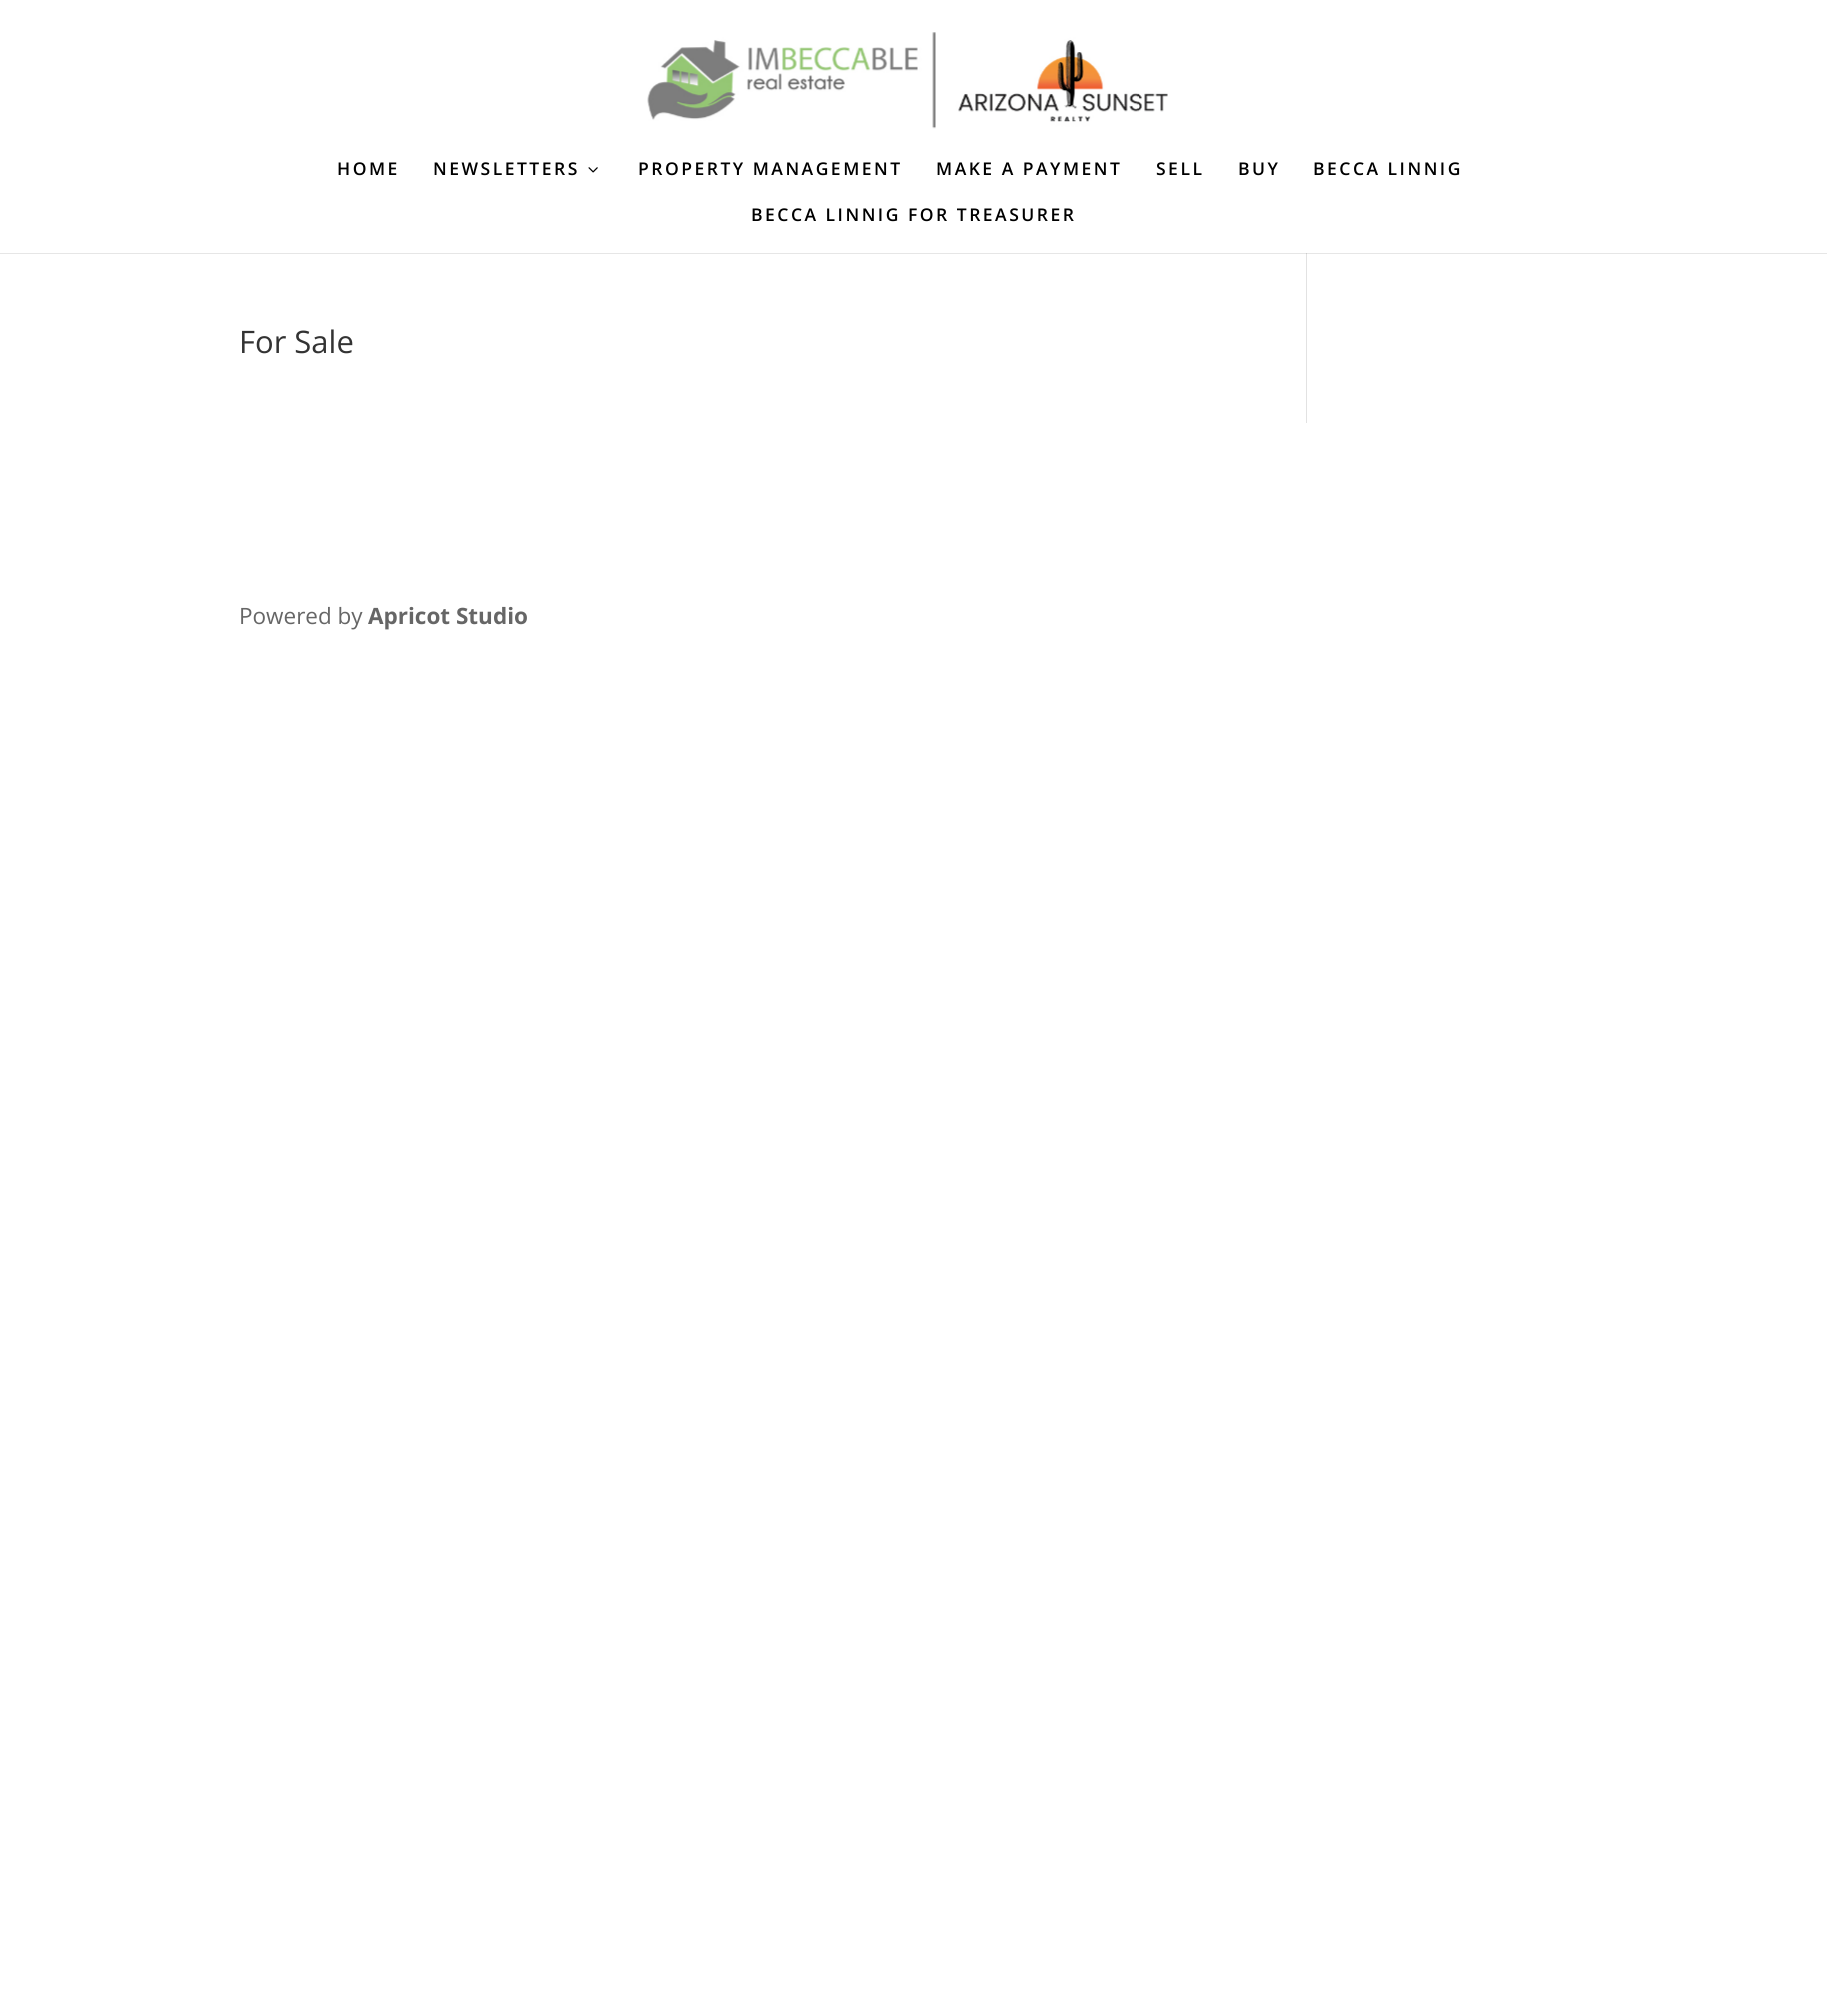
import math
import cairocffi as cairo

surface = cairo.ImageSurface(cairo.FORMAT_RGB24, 1827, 2011)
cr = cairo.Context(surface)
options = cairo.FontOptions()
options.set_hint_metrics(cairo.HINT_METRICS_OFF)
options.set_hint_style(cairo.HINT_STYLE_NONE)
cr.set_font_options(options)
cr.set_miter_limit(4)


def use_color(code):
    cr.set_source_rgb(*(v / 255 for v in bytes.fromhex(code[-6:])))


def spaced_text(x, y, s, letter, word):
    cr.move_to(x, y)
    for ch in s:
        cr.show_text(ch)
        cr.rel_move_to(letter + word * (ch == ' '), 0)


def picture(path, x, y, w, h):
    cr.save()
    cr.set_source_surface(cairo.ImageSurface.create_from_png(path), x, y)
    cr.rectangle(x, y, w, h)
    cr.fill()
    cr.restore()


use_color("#ffffff")
cr.paint()
use_color("#e2e2e2")
cr.rectangle(1306, 253, 1, 170)
cr.fill()
cr.set_source_rgba(0, 0, 0, 0.1)
cr.new_path()
cr.move_to(0, 252)
cr.line_to(0, 254)
cr.line_to(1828, 254)
cr.line_to(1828, 1)
cr.line_to(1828, 252)
cr.close_path()
cr.fill()
use_color("#ffffff")
cr.rectangle(0, 252, 1827, 1)
cr.fill()
picture("img1.png", 647, 32, 521, 97)
cr.select_font_face("Open Sans SemiBold")
cr.set_font_size(17.5)
use_color("#000000")
spaced_text(337, 175, "HOME", 2.5, 0)
spaced_text(433, 175, "NEWSLETTERS", 2.5, 0)
picture("img2.png", 588, 167, 10, 6)
spaced_text(638, 175, "PROPERTY MANAGEMENT", 2.5, 0)
spaced_text(936, 175, "MAKE A PAYMENT", 2.5, 0)
spaced_text(1156, 175, "SELL", 2.5, 0)
spaced_text(1238, 175, "BUY", 2.5, 0)
spaced_text(1313, 175, "BECCA LINNIG", 2.5, 0)
spaced_text(751, 221, "BECCA LINNIG FOR TREASURER", 2.5, 0)
cr.select_font_face("Open Sans")
cr.set_font_size(31)
use_color("#333333")
cr.move_to(239, 353)
cr.show_text("For Sale")
cr.set_font_size(22.5)
use_color("#666666")
cr.move_to(239, 624)
cr.show_text("Powered by")
cr.select_font_face("Open Sans", cairo.FONT_SLANT_NORMAL, cairo.FONT_WEIGHT_BOLD)
cr.move_to(368, 624)
cr.show_text("Apricot Studio")
surface.write_to_png("result.png")
